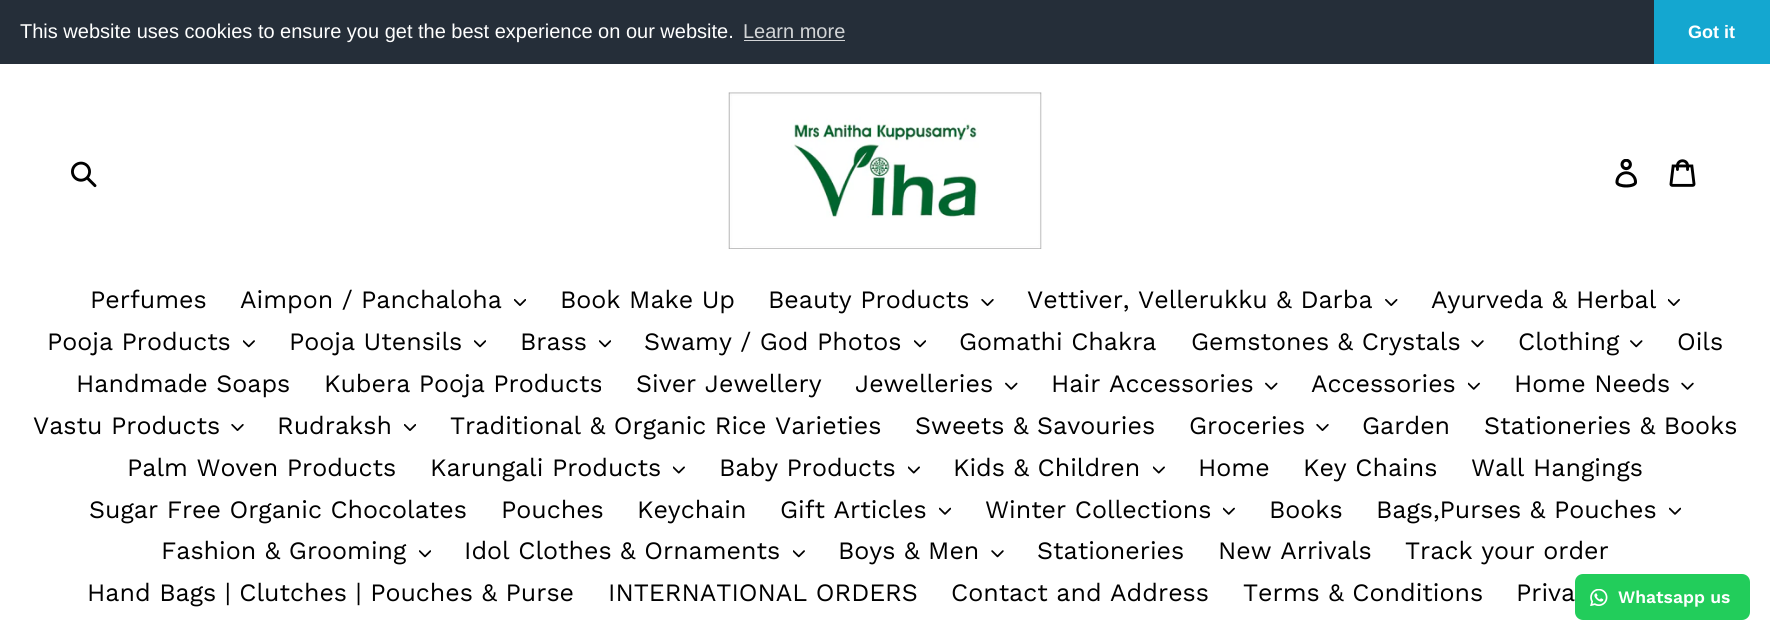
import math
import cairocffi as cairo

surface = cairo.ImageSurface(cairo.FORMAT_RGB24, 1770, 640)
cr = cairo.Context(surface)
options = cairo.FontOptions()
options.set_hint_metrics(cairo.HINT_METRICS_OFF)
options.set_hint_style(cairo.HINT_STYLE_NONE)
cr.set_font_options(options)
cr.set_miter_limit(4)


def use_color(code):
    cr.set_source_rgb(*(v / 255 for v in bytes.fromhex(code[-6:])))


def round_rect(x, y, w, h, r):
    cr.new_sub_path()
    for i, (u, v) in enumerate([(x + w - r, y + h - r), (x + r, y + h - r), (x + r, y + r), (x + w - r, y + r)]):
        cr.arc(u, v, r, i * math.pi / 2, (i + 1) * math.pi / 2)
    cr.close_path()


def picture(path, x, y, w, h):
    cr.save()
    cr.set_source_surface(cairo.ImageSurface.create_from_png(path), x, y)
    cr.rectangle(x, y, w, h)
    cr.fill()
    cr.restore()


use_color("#ffffff")
cr.paint()
use_color("#252e39")
cr.rectangle(0, 0, 1654, 64)
cr.fill()
cr.select_font_face("Liberation Sans")
cr.set_font_size(20)
use_color("#ffffff")
cr.move_to(20, 38)
cr.show_text("This website uses cookies to ensure you get the best experience on our website.")
use_color("#d3d5d7")
cr.move_to(743, 38)
cr.show_text("Learn more")
cr.rectangle(744, 40, 101, 1)
cr.fill()
use_color("#14a7d0")
cr.rectangle(1654, 0, 116, 64)
cr.fill()
cr.select_font_face("Liberation Sans", cairo.FONT_SLANT_NORMAL, cairo.FONT_WEIGHT_BOLD)
cr.set_font_size(18)
use_color("#ffffff")
cr.move_to(1688, 38)
cr.show_text("Got it")
picture("img1.png", 71, 161, 26, 27)
picture("img2.png", 728, 92, 314, 157)
picture("img3.png", 1615, 159, 22, 29)
picture("img4.png", 1669, 159, 27, 28)
cr.select_font_face("Work Sans")
cr.set_font_size(25)
use_color("#000000")
cr.move_to(90, 308)
cr.show_text("Perfumes")
cr.move_to(240, 308)
cr.show_text("Aimpon / Panchaloha")
picture("img5.png", 514, 299, 12, 7)
cr.move_to(560, 308)
cr.show_text("Book Make Up")
cr.move_to(768, 308)
cr.show_text("Beauty Products")
picture("img6.png", 981, 299, 13, 7)
cr.move_to(1027, 308)
cr.show_text("Vettiver, Vellerukku & Darba")
picture("img7.png", 1385, 299, 13, 7)
cr.move_to(1431, 308)
cr.show_text("Ayurveda & Herbal")
picture("img8.png", 1668, 299, 12, 7)
cr.move_to(47, 350)
cr.show_text("Pooja Products")
picture("img9.png", 243, 340, 12, 8)
cr.move_to(289, 350)
cr.show_text("Pooja Utensils")
picture("img10.png", 474, 340, 12, 8)
cr.move_to(520, 350)
cr.show_text("Brass")
picture("img10.png", 599, 340, 12, 8)
cr.move_to(644, 350)
cr.show_text("Swamy / God Photos")
picture("img10.png", 914, 340, 12, 8)
cr.move_to(959, 350)
cr.show_text("Gomathi Chakra")
cr.move_to(1191, 350)
cr.show_text("Gemstones & Crystals")
picture("img11.png", 1471, 340, 13, 8)
cr.move_to(1518, 350)
cr.show_text("Clothing")
picture("img12.png", 1630, 340, 13, 8)
cr.move_to(1677, 350)
cr.show_text("Oils")
cr.move_to(76, 392)
cr.show_text("Handmade Soaps")
cr.move_to(324, 392)
cr.show_text("Kubera Pooja Products")
cr.move_to(636, 392)
cr.show_text("Siver Jewellery")
cr.move_to(855, 392)
cr.show_text("Jewelleries")
picture("img13.png", 1005, 382, 13, 8)
cr.move_to(1051, 392)
cr.show_text("Hair Accessories")
picture("img13.png", 1265, 382, 13, 8)
cr.move_to(1311, 392)
cr.show_text("Accessories")
picture("img14.png", 1468, 382, 12, 8)
cr.move_to(1514, 392)
cr.show_text("Home Needs")
picture("img15.png", 1681, 382, 13, 8)
cr.move_to(33, 434)
cr.show_text("Vastu Products")
picture("img6.png", 231, 424, 13, 7)
cr.move_to(277, 434)
cr.show_text("Rudraksh")
picture("img5.png", 404, 424, 12, 7)
cr.move_to(450, 434)
cr.show_text("Traditional & Organic Rice Varieties")
cr.move_to(915, 434)
cr.show_text("Sweets & Savouries")
cr.move_to(1189, 434)
cr.show_text("Groceries")
picture("img6.png", 1316, 424, 13, 7)
cr.move_to(1362, 434)
cr.show_text("Garden")
cr.move_to(1484, 434)
cr.show_text("Stationeries & Books")
cr.move_to(127, 476)
cr.show_text("Palm Woven Products")
cr.move_to(430, 476)
cr.show_text("Karungali Products")
picture("img16.png", 673, 466, 12, 8)
cr.move_to(719, 476)
cr.show_text("Baby Products")
picture("img16.png", 908, 466, 12, 8)
cr.move_to(953, 476)
cr.show_text("Kids & Children")
picture("img16.png", 1153, 466, 12, 8)
cr.move_to(1198, 476)
cr.show_text("Home")
cr.move_to(1303, 476)
cr.show_text("Key Chains")
cr.move_to(1471, 476)
cr.show_text("Wall Hangings")
cr.move_to(89, 518)
cr.show_text("Sugar Free Organic Chocolates")
cr.move_to(501, 518)
cr.show_text("Pouches")
cr.move_to(637, 518)
cr.show_text("Keychain")
cr.move_to(780, 518)
cr.show_text("Gift Articles")
picture("img17.png", 939, 507, 12, 8)
cr.move_to(985, 518)
cr.show_text("Winter Collections")
picture("img14.png", 1223, 507, 12, 8)
cr.move_to(1269, 518)
cr.show_text("Books")
cr.move_to(1376, 518)
cr.show_text("Bags,Purses & Pouches")
picture("img17.png", 1669, 507, 12, 8)
cr.move_to(161, 559)
cr.show_text("Fashion & Grooming")
picture("img10.png", 419, 550, 12, 8)
cr.move_to(464, 559)
cr.show_text("Idol Clothes & Ornaments")
picture("img9.png", 793, 550, 12, 8)
cr.move_to(838, 559)
cr.show_text("Boys & Men")
picture("img11.png", 991, 550, 13, 8)
cr.move_to(1037, 559)
cr.show_text("Stationeries")
cr.move_to(1218, 559)
cr.show_text("New Arrivals")
cr.move_to(1405, 559)
cr.show_text("Track your order")
cr.move_to(87, 601)
cr.show_text("Hand Bags | Clutches | Pouches & Purse")
cr.move_to(608, 601)
cr.show_text("INTERNATIONAL ORDERS")
cr.move_to(951, 601)
cr.show_text("Contact and Address")
cr.move_to(1243, 601)
cr.show_text("Terms & Conditions")
cr.move_to(1516, 601)
cr.show_text("Priva")
use_color("#22cd5b")
round_rect(1575, 574, 175, 46, 8)
cr.fill()
picture("img18.png", 1590, 589, 18, 17)
cr.select_font_face("Work Sans SemiBold")
cr.set_font_size(17.5)
use_color("#ffffff")
cr.move_to(1618, 603)
cr.show_text("Whatsapp us")
surface.write_to_png("result.png")
